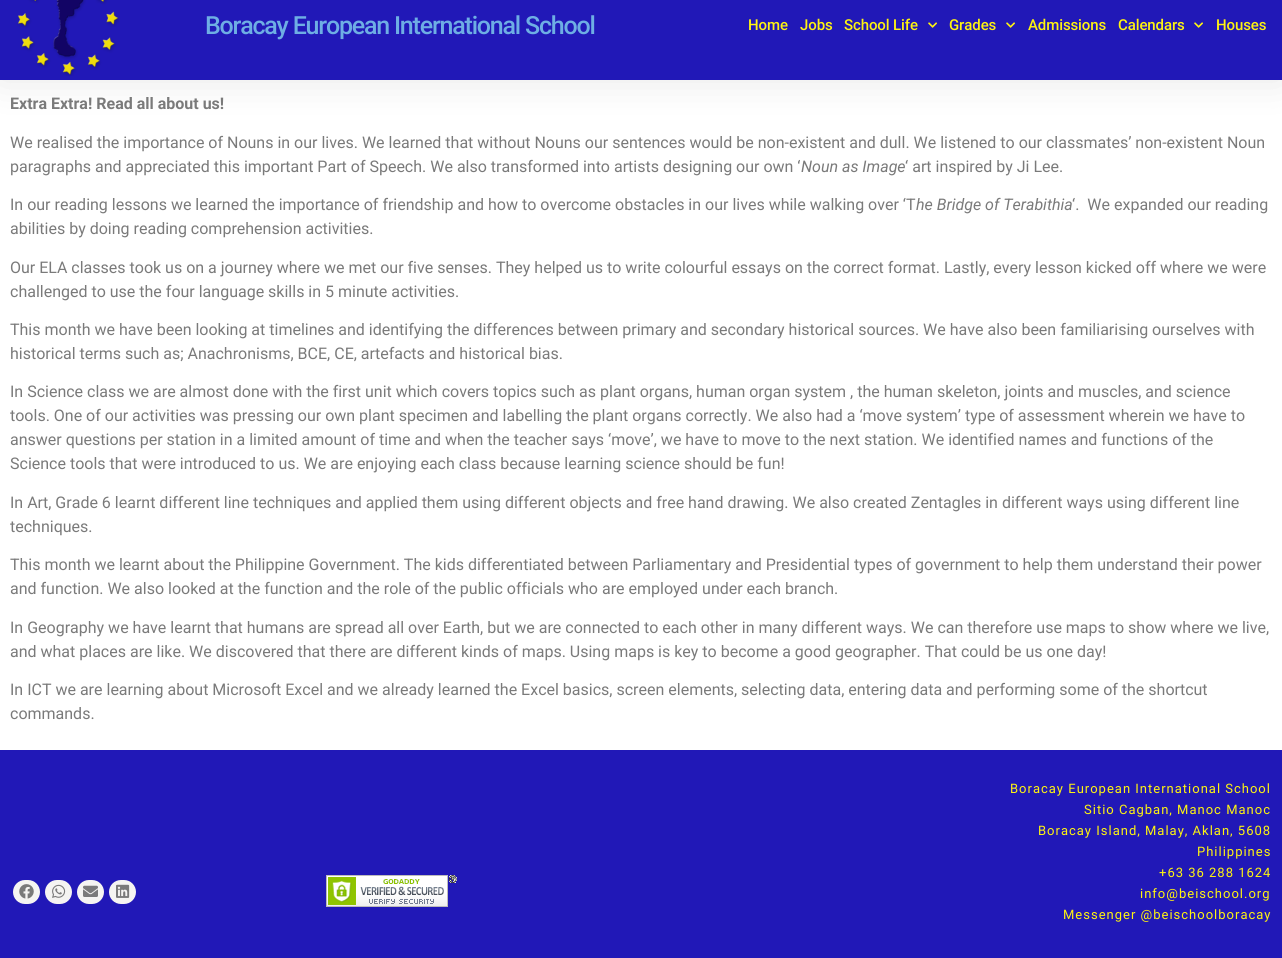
import math
import cairocffi as cairo

surface = cairo.ImageSurface(cairo.FORMAT_RGB24, 1282, 958)
cr = cairo.Context(surface)
options = cairo.FontOptions()
options.set_hint_metrics(cairo.HINT_METRICS_OFF)
options.set_hint_style(cairo.HINT_STYLE_NONE)
cr.set_font_options(options)
cr.set_miter_limit(4)


def use_color(code):
    cr.set_source_rgb(*(v / 255 for v in bytes.fromhex(code[-6:])))


def spaced_text(x, y, s, letter, word):
    cr.move_to(x, y)
    for ch in s:
        cr.show_text(ch)
        cr.rel_move_to(letter + word * (ch == ' '), 0)


def round_rect(x, y, w, h, r):
    cr.new_sub_path()
    for i, (u, v) in enumerate([(x + w - r, y + h - r), (x + r, y + h - r), (x + r, y + r), (x + w - r, y + r)]):
        cr.arc(u, v, r, i * math.pi / 2, (i + 1) * math.pi / 2)
    cr.close_path()


def shadow(x, y, w, h, r, blur, alpha):
    cr.push_group_with_content(cairo.CONTENT_ALPHA)
    cr.set_operator(cairo.OPERATOR_SOURCE)
    for i in range(15, -16, -2):
        e = blur * i / 6
        if min(w, h) + 2 * e > 0:
            cr.set_source_rgba(0, 0, 0, alpha * math.erfc((i - 1) / 8.5) / 2)
            round_rect(x - e, y - e, w + 2 * e, h + 2 * e, max(0, min(r + e + blur * .6, min(w, h) / 2 + e)))
            cr.fill()
    cr.mask(cr.pop_group())


def picture(path, x, y, w, h):
    cr.save()
    cr.set_source_surface(cairo.ImageSurface.create_from_png(path), x, y)
    cr.rectangle(x, y, w, h)
    cr.fill()
    cr.restore()


use_color("#ffffff")
cr.paint()
use_color("#000000")
shadow(0, -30, 1282, 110, 0, 19, 0.1)
use_color("#2118b7")
cr.rectangle(0, 0, 1282, 80)
cr.fill()
picture("img1.png", 17, 0, 102, 76)
cr.select_font_face("Roboto Medium")
cr.set_font_size(25)
use_color("#6eaee4")
spaced_text(205, 34, "Boracay European International School", -1.2, 0)
cr.set_font_size(15)
use_color("#fff410")
spaced_text(748, 30, "Home", -0.1, 0)
spaced_text(800, 30, "Jobs", -0.1, 0)
spaced_text(844, 30, "School Life", -0.1, 0)
picture("img2.png", 928, 22, 9, 6)
spaced_text(949, 30, "Grades", -0.1, 0)
picture("img2.png", 1006, 22, 9, 6)
spaced_text(1028, 30, "Admissions", -0.1, 0)
spaced_text(1118, 30, "Calendars", -0.1, 0)
picture("img2.png", 1194, 22, 9, 6)
spaced_text(1216, 30, "Houses", -0.1, 0)
cr.select_font_face("Roboto", cairo.FONT_SLANT_NORMAL, cairo.FONT_WEIGHT_BOLD)
cr.set_font_size(16)
use_color("#7a7a7a")
cr.move_to(10, 109)
cr.show_text("Extra Extra! Read all about us!")
cr.select_font_face("Roboto")
cr.move_to(10, 148)
cr.show_text("We realised the importance of Nouns in our lives. We learned that without Nouns our sentences would be non-existent and dull. We listened to our classmates’ non-existent Noun")
cr.move_to(10, 172)
cr.show_text("paragraphs and appreciated this important Part of Speech. We also transformed into artists designing our own ‘")
cr.select_font_face("Roboto", cairo.FONT_SLANT_ITALIC)
cr.move_to(801, 172)
cr.show_text("Noun as Image")
cr.select_font_face("Roboto")
cr.move_to(905, 172)
cr.show_text("‘ art inspired by Ji Lee.")
cr.move_to(10, 210)
cr.show_text("In our reading lessons we learned the importance of friendship and how to overcome obstacles in our lives while walking over ‘T")
cr.select_font_face("Roboto", cairo.FONT_SLANT_ITALIC)
cr.move_to(916, 210)
cr.show_text("he Bridge of Terabithia")
cr.select_font_face("Roboto")
cr.move_to(1072, 210)
cr.show_text("‘.  We expanded our reading")
cr.move_to(10, 234)
cr.show_text("abilities by doing reading comprehension activities.")
cr.move_to(10, 273)
cr.show_text("Our ELA classes took us on a journey where we met our five senses. They helped us to write colourful essays on the correct format. Lastly, every lesson kicked off where we were")
cr.move_to(10, 297)
cr.show_text("challenged to use the four language skills in 5 minute activities.")
cr.move_to(10, 335)
cr.show_text("This month we have been looking at timelines and identifying the differences between primary and secondary historical sources. We have also been familiarising ourselves with")
cr.move_to(10, 359)
cr.show_text("historical terms such as; Anachronisms, BCE, CE, artefacts and historical bias.")
cr.move_to(10, 397)
cr.show_text("In Science class we are almost done with the first unit which covers topics such as plant organs, human organ system , the human skeleton, joints and muscles, and science")
cr.move_to(10, 421)
cr.show_text("tools. One of our activities was pressing our own plant specimen and labelling the plant organs correctly. We also had a ‘move system’ type of assessment wherein we have to")
cr.move_to(10, 445)
cr.show_text("answer questions per station in a limited amount of time and when the teacher says ‘move’, we have to move to the next station. We identified names and functions of the")
cr.move_to(10, 469)
cr.show_text("Science tools that were introduced to us. We are enjoying each class because learning science should be fun!")
cr.move_to(10, 508)
cr.show_text("In Art, Grade 6 learnt different line techniques and applied them using different objects and free hand drawing. We also created Zentagles in different ways using different line")
cr.move_to(10, 532)
cr.show_text("techniques.")
cr.move_to(10, 570)
cr.show_text("This month we learnt about the Philippine Government. The kids differentiated between Parliamentary and Presidential types of government to help them understand their power")
cr.move_to(10, 594)
cr.show_text("and function. We also looked at the function and the role of the public officials who are employed under each branch.")
cr.move_to(10, 633)
cr.show_text("In Geography we have learnt that humans are spread all over Earth, but we are connected to each other in many different ways. We can therefore use maps to show where we live,")
cr.move_to(10, 657)
cr.show_text("and what places are like. We discovered that there are different kinds of maps. Using maps is key to become a good geographer. That could be us one day!")
cr.move_to(10, 695)
cr.show_text("In ICT we are learning about Microsoft Excel and we already learned the Excel basics, screen elements, selecting data, entering data and performing some of the shortcut")
cr.move_to(10, 719)
cr.show_text("commands.")
use_color("#2118b7")
cr.rectangle(0, 750, 1282, 208)
cr.fill()
use_color("#f5f4f2")
round_rect(13, 880, 27, 24, 12)
cr.fill()
picture("img3.png", 19, 884, 15, 15)
round_rect(45, 880, 27, 24, 12)
cr.fill()
picture("img4.png", 52, 884, 14, 14)
round_rect(77, 880, 27, 24, 12)
cr.fill()
picture("img5.png", 83, 885, 15, 12)
round_rect(109, 880, 27, 24, 12)
cr.fill()
picture("img6.png", 116, 884, 14, 14)
picture("img7.png", 326, 875, 131, 32)
cr.set_font_size(13)
use_color("#fff410")
spaced_text(1010, 793, "Boracay European International School", 1, 0)
spaced_text(1084, 814, "Sitio Cagban, Manoc Manoc", 1, 0)
spaced_text(1038, 835, "Boracay Island, Malay, Aklan, 5608", 1, 0)
spaced_text(1197, 856, "Philippines", 1, 0)
spaced_text(1159, 877, "+63 36 288 1624", 1, 0)
spaced_text(1140, 898, "info@beischool.org", 1, 0)
spaced_text(1063, 919, "Messenger @beischoolboracay", 1, 0)
surface.write_to_png("result.png")
